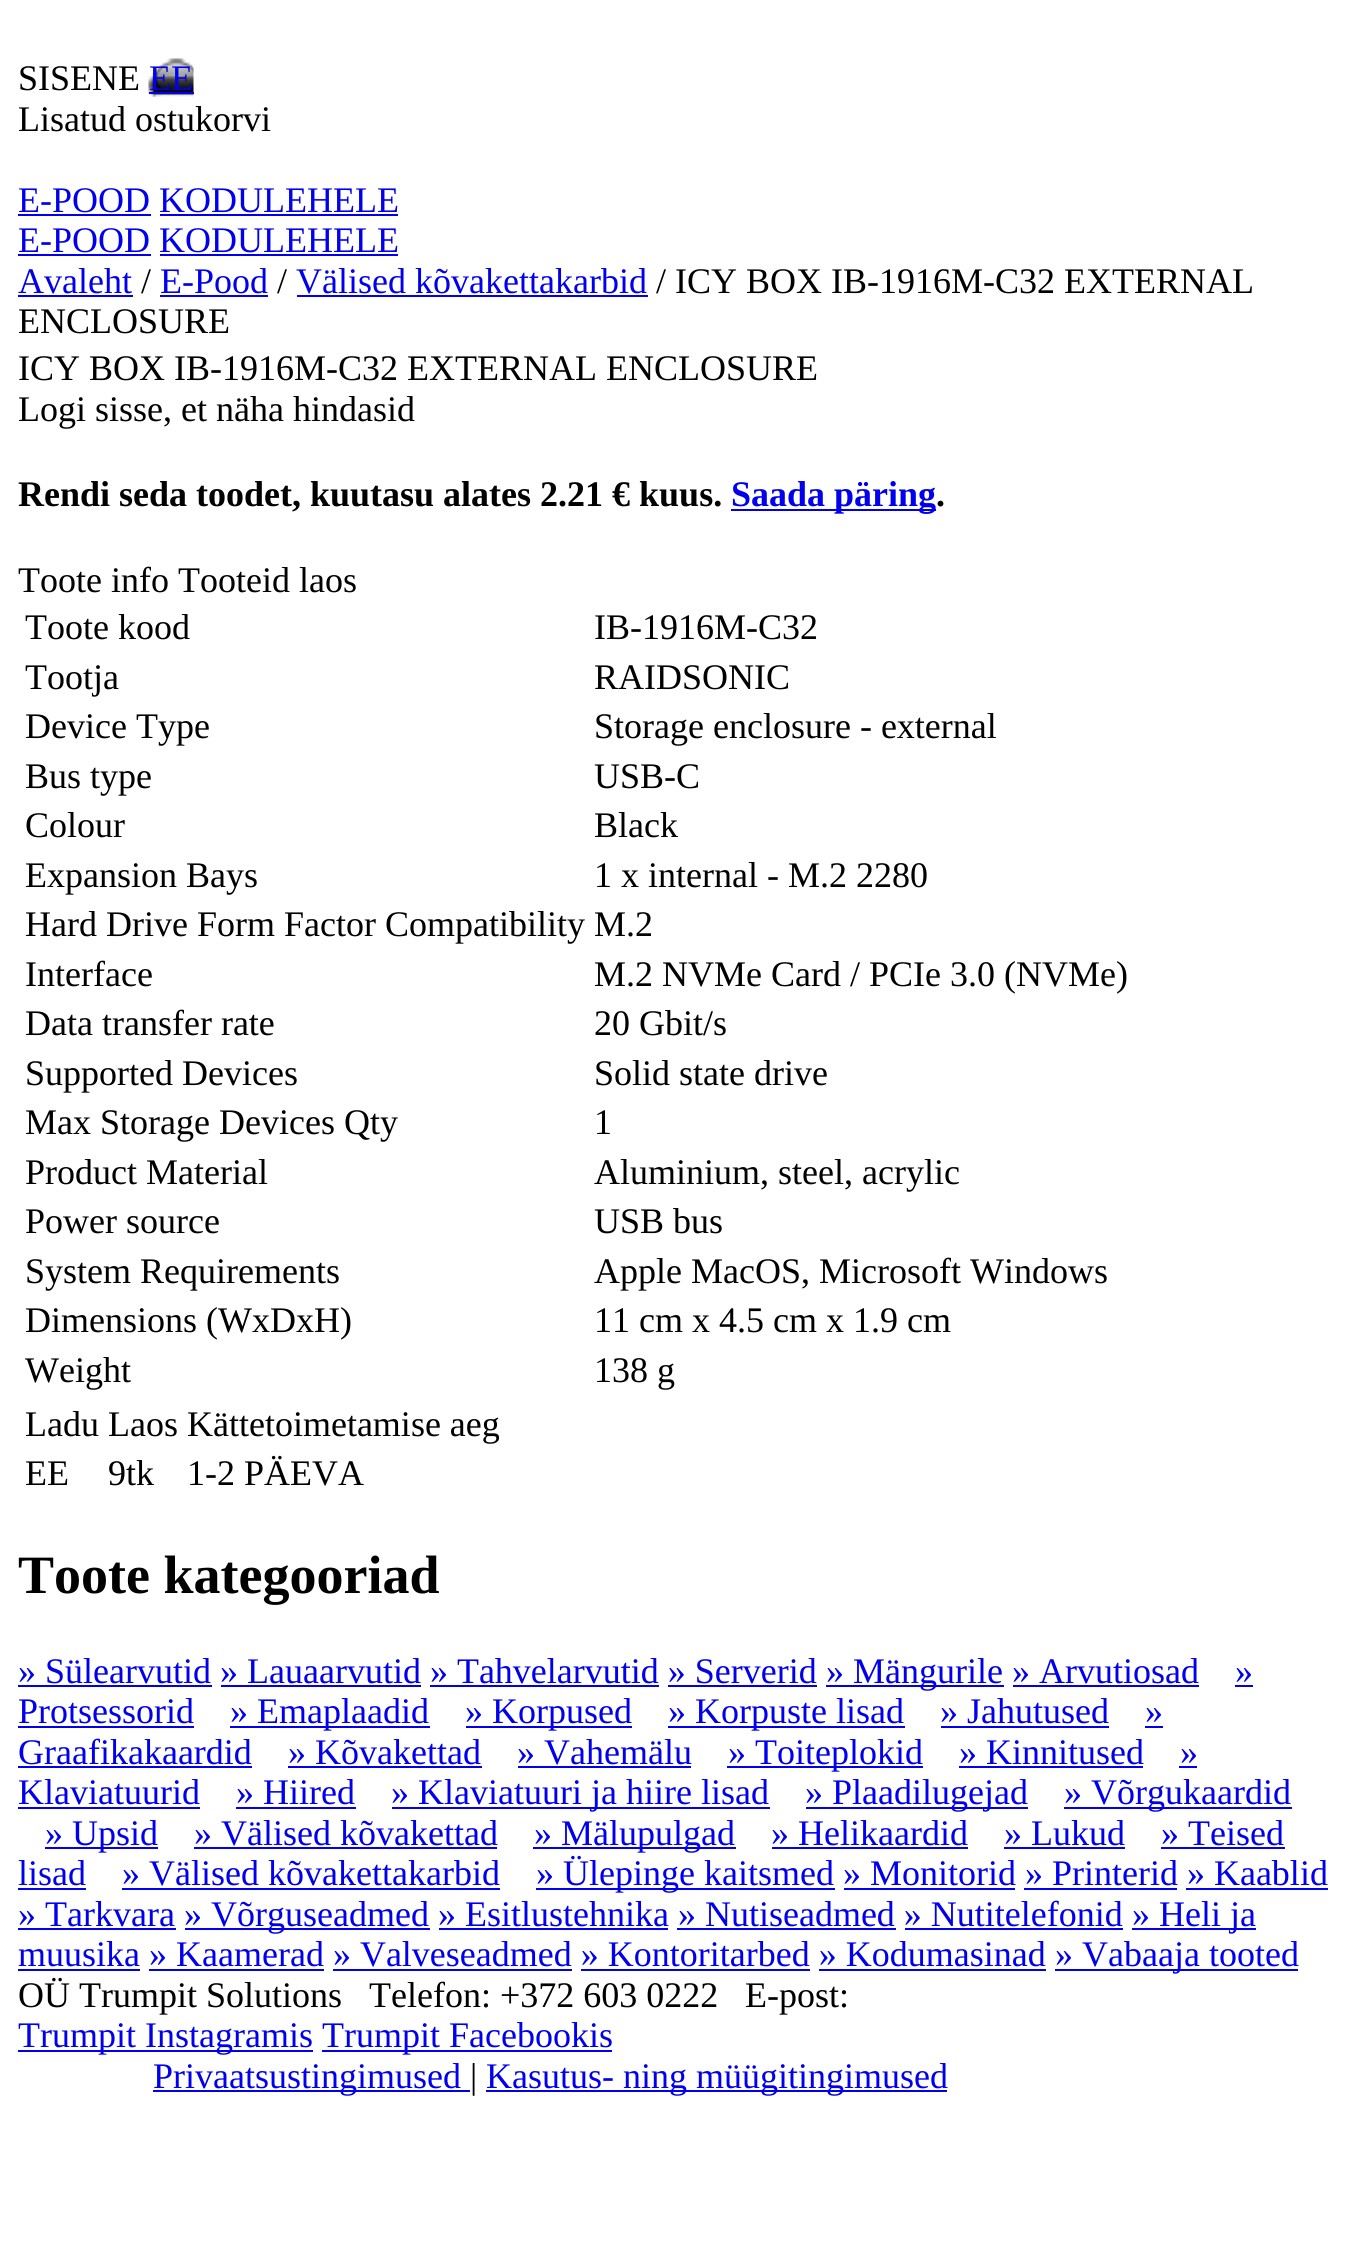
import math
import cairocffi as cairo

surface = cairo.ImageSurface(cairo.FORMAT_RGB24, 1349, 2241)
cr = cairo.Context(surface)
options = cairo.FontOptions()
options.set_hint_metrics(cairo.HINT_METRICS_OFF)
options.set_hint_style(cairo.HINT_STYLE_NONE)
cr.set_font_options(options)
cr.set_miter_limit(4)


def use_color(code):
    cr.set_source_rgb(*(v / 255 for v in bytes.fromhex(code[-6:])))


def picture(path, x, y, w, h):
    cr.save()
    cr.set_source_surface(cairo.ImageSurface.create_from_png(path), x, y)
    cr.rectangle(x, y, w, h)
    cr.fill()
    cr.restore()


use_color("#ffffff")
cr.paint()
cr.select_font_face("Liberation Serif")
cr.set_font_size(36)
use_color("#000000")
cr.move_to(18, 90)
cr.show_text("SISENE")
picture("img1.png", 148, 58, 46, 39)
use_color("#0000ee")
cr.move_to(149, 90)
cr.show_text("EE")
cr.rectangle(149, 92, 45, 2)
cr.fill()
use_color("#000000")
cr.move_to(18, 131)
cr.show_text("Lisatud ostukorvi")
use_color("#0000ee")
cr.move_to(18, 212)
cr.show_text("E-POOD KODULEHELE")
cr.rectangle(18, 214, 133, 2)
cr.fill()
cr.rectangle(160, 214, 238, 2)
cr.fill()
cr.move_to(18, 252)
cr.show_text("E-POOD KODULEHELE")
cr.rectangle(18, 254, 133, 2)
cr.fill()
cr.rectangle(160, 254, 238, 2)
cr.fill()
cr.move_to(18, 293)
cr.show_text("Avaleht")
cr.rectangle(18, 295, 115, 2)
cr.fill()
use_color("#000000")
cr.move_to(141, 293)
cr.show_text("/")
use_color("#0000ee")
cr.move_to(160, 293)
cr.show_text("E-Pood")
cr.rectangle(160, 295, 108, 2)
cr.fill()
use_color("#000000")
cr.move_to(277, 293)
cr.show_text("/")
use_color("#0000ee")
cr.move_to(296, 293)
cr.show_text("Välised kõvakettakarbid")
cr.rectangle(297, 295, 351, 2)
cr.fill()
use_color("#000000")
cr.move_to(656, 293)
cr.show_text("/ ICY BOX IB-1916M-C32 EXTERNAL")
cr.move_to(18, 333)
cr.show_text("ENCLOSURE")
cr.move_to(18, 380)
cr.show_text("ICY BOX IB-1916M-C32 EXTERNAL ENCLOSURE")
cr.move_to(18, 421)
cr.show_text("Logi sisse, et näha hindasid")
cr.select_font_face("Liberation Serif", cairo.FONT_SLANT_NORMAL, cairo.FONT_WEIGHT_BOLD)
cr.move_to(18, 506)
cr.show_text("Rendi seda toodet, kuutasu alates 2.21 € kuus.")
use_color("#0000ee")
cr.rectangle(731, 509, 205, 2)
cr.fill()
cr.move_to(731, 506)
cr.show_text("Saada päring")
use_color("#000000")
cr.move_to(936, 506)
cr.show_text(".")
cr.select_font_face("Liberation Serif")
cr.move_to(18, 592)
cr.show_text("Toote info Tooteid laos")
cr.move_to(25, 639)
cr.show_text("Toote kood")
cr.move_to(594, 639)
cr.show_text("IB-1916M-C32")
cr.move_to(25, 689)
cr.show_text("Tootja")
cr.move_to(594, 689)
cr.show_text("RAIDSONIC")
cr.move_to(25, 738)
cr.show_text("Device Type")
cr.move_to(594, 738)
cr.show_text("Storage enclosure - external")
cr.move_to(25, 788)
cr.show_text("Bus type")
cr.move_to(594, 788)
cr.show_text("USB-C")
cr.move_to(25, 837)
cr.show_text("Colour")
cr.move_to(594, 837)
cr.show_text("Black")
cr.move_to(25, 887)
cr.show_text("Expansion Bays")
cr.move_to(594, 887)
cr.show_text("1 x internal - M.2 2280")
cr.move_to(25, 936)
cr.show_text("Hard Drive Form Factor Compatibility M.2")
cr.move_to(25, 986)
cr.show_text("Interface")
cr.move_to(594, 986)
cr.show_text("M.2 NVMe Card / PCIe 3.0 (NVMe)")
cr.move_to(25, 1035)
cr.show_text("Data transfer rate")
cr.move_to(594, 1035)
cr.show_text("20 Gbit/s")
cr.move_to(25, 1085)
cr.show_text("Supported Devices")
cr.move_to(594, 1085)
cr.show_text("Solid state drive")
cr.move_to(25, 1134)
cr.show_text("Max Storage Devices Qty")
cr.move_to(594, 1134)
cr.show_text("1")
cr.move_to(25, 1184)
cr.show_text("Product Material")
cr.move_to(594, 1184)
cr.show_text("Aluminium, steel, acrylic")
cr.move_to(25, 1233)
cr.show_text("Power source")
cr.move_to(594, 1233)
cr.show_text("USB bus")
cr.move_to(25, 1283)
cr.show_text("System Requirements")
cr.move_to(594, 1283)
cr.show_text("Apple MacOS, Microsoft Windows")
cr.move_to(25, 1332)
cr.show_text("Dimensions (WxDxH)")
cr.move_to(594, 1332)
cr.show_text("11 cm x 4.5 cm x 1.9 cm")
cr.move_to(25, 1382)
cr.show_text("Weight")
cr.move_to(594, 1382)
cr.show_text("138 g")
cr.move_to(25, 1436)
cr.show_text("Ladu Laos Kättetoimetamise aeg")
cr.move_to(25, 1485)
cr.show_text("EE")
cr.move_to(108, 1485)
cr.show_text("9tk")
cr.move_to(187, 1485)
cr.show_text("1-2 PÄEVA")
cr.select_font_face("Liberation Serif", cairo.FONT_SLANT_NORMAL, cairo.FONT_WEIGHT_BOLD)
cr.set_font_size(54)
cr.move_to(18, 1593)
cr.show_text("Toote kategooriad")
cr.select_font_face("Liberation Serif")
cr.set_font_size(36)
use_color("#0000ee")
cr.move_to(18, 1683)
cr.show_text("» Sülearvutid » Lauaarvutid » Tahvelarvutid » Serverid")
cr.rectangle(18, 1685, 194, 2)
cr.fill()
cr.rectangle(826, 1685, 178, 2)
cr.fill()
cr.move_to(826, 1683)
cr.show_text("» Mängurile » Arvutiosad")
cr.move_to(1235, 1683)
cr.show_text("»")
cr.rectangle(1235, 1685, 18, 2)
cr.fill()
cr.rectangle(221, 1685, 200, 2)
cr.fill()
cr.rectangle(430, 1685, 229, 2)
cr.fill()
cr.rectangle(668, 1685, 149, 2)
cr.fill()
cr.rectangle(1013, 1685, 186, 2)
cr.fill()
cr.move_to(18, 1723)
cr.show_text("Protsessorid")
cr.rectangle(18, 1726, 176, 2)
cr.fill()
cr.rectangle(230, 1726, 200, 2)
cr.fill()
cr.move_to(230, 1723)
cr.show_text("» Emaplaadid")
cr.rectangle(466, 1726, 166, 2)
cr.fill()
cr.move_to(465, 1723)
cr.show_text("» Korpused")
cr.rectangle(668, 1726, 237, 2)
cr.fill()
cr.move_to(668, 1723)
cr.show_text("» Korpuste lisad")
cr.move_to(940, 1723)
cr.show_text("» Jahutused")
cr.rectangle(941, 1726, 168, 2)
cr.fill()
cr.move_to(1145, 1723)
cr.show_text("»")
cr.rectangle(1145, 1726, 18, 2)
cr.fill()
cr.move_to(18, 1764)
cr.show_text("Graafikakaardid")
cr.rectangle(18, 1766, 234, 2)
cr.fill()
cr.move_to(288, 1764)
cr.show_text("» Kõvakettad")
cr.rectangle(288, 1766, 194, 2)
cr.fill()
cr.move_to(517, 1764)
cr.show_text("» Vahemälu")
cr.rectangle(518, 1766, 173, 2)
cr.fill()
cr.rectangle(727, 1766, 196, 2)
cr.fill()
cr.move_to(728, 1764)
cr.show_text("» Toiteplokid")
cr.move_to(959, 1764)
cr.show_text("» Kinnitused")
cr.rectangle(959, 1766, 184, 2)
cr.fill()
cr.move_to(1180, 1764)
cr.show_text("»")
cr.rectangle(1179, 1766, 18, 2)
cr.fill()
cr.move_to(18, 1804)
cr.show_text("Klaviatuurid")
cr.rectangle(18, 1807, 182, 2)
cr.fill()
cr.move_to(236, 1804)
cr.show_text("» Hiired")
cr.rectangle(236, 1807, 120, 2)
cr.fill()
cr.rectangle(392, 1807, 378, 2)
cr.fill()
cr.move_to(391, 1804)
cr.show_text("» Klaviatuuri ja hiire lisad")
cr.rectangle(806, 1807, 222, 2)
cr.fill()
cr.move_to(805, 1804)
cr.show_text("» Plaadilugejad")
cr.rectangle(1064, 1807, 228, 2)
cr.fill()
cr.move_to(1064, 1804)
cr.show_text("» Võrgukaardid")
cr.rectangle(45, 1847, 113, 2)
cr.fill()
cr.move_to(45, 1845)
cr.show_text("» Upsid")
cr.move_to(194, 1845)
cr.show_text("» Välised kõvakettad")
cr.rectangle(194, 1847, 303, 2)
cr.fill()
cr.rectangle(533, 1847, 203, 2)
cr.fill()
cr.move_to(534, 1845)
cr.show_text("» Mälupulgad")
cr.move_to(771, 1845)
cr.show_text("» Helikaardid")
cr.rectangle(772, 1847, 196, 2)
cr.fill()
cr.move_to(1004, 1845)
cr.show_text("» Lukud")
cr.rectangle(1004, 1847, 121, 2)
cr.fill()
cr.move_to(1161, 1845)
cr.show_text("» Teised")
cr.rectangle(1161, 1847, 124, 2)
cr.fill()
cr.move_to(18, 1885)
cr.show_text("lisad")
cr.rectangle(18, 1888, 68, 2)
cr.fill()
cr.move_to(122, 1885)
cr.show_text("» Välised kõvakettakarbid")
cr.rectangle(122, 1888, 378, 2)
cr.fill()
cr.rectangle(536, 1888, 299, 2)
cr.fill()
cr.move_to(536, 1885)
cr.show_text("» Ülepinge kaitsmed » Monitorid » Printerid » Kaablid")
cr.rectangle(844, 1888, 171, 2)
cr.fill()
cr.rectangle(1024, 1888, 153, 2)
cr.fill()
cr.rectangle(1186, 1888, 142, 2)
cr.fill()
cr.move_to(18, 1926)
cr.show_text("» Tarkvara")
cr.rectangle(18, 1928, 158, 2)
cr.fill()
cr.rectangle(185, 1928, 245, 2)
cr.fill()
cr.move_to(184, 1926)
cr.show_text("» Võrguseadmed » Esitlustehnika » Nutiseadmed » Nutitelefonid")
cr.rectangle(1132, 1928, 124, 2)
cr.fill()
cr.move_to(1132, 1926)
cr.show_text("» Heli ja")
cr.rectangle(439, 1928, 229, 2)
cr.fill()
cr.rectangle(677, 1928, 219, 2)
cr.fill()
cr.rectangle(905, 1928, 218, 2)
cr.fill()
cr.move_to(18, 1966)
cr.show_text("muusika » Kaamerad » Valveseadmed » Kontoritarbed » Kodumasinad")
cr.rectangle(18, 1969, 122, 2)
cr.fill()
cr.rectangle(1055, 1969, 243, 2)
cr.fill()
cr.move_to(1055, 1966)
cr.show_text("» Vabaaja tooted")
cr.rectangle(149, 1969, 175, 2)
cr.fill()
cr.rectangle(333, 1969, 239, 2)
cr.fill()
cr.rectangle(581, 1969, 229, 2)
cr.fill()
cr.rectangle(819, 1969, 227, 2)
cr.fill()
use_color("#000000")
cr.move_to(18, 2007)
cr.show_text("OÜ Trumpit Solutions")
cr.move_to(369, 2007)
cr.show_text("Telefon: +372 603 0222")
cr.move_to(745, 2007)
cr.show_text("E-post:")
use_color("#0000ee")
cr.rectangle(18, 2050, 295, 2)
cr.fill()
cr.move_to(18, 2047)
cr.show_text("Trumpit Instagramis")
cr.rectangle(322, 2050, 290, 2)
cr.fill()
cr.move_to(322, 2047)
cr.show_text("Trumpit Facebookis")
cr.rectangle(153, 2090, 317, 2)
cr.fill()
cr.move_to(153, 2088)
cr.show_text("Privaatsustingimused")
use_color("#000000")
cr.move_to(470, 2088)
cr.show_text("|")
use_color("#0000ee")
cr.rectangle(486, 2090, 461, 2)
cr.fill()
cr.move_to(486, 2088)
cr.show_text("Kasutus- ning müügitingimused")
surface.write_to_png("result.png")
